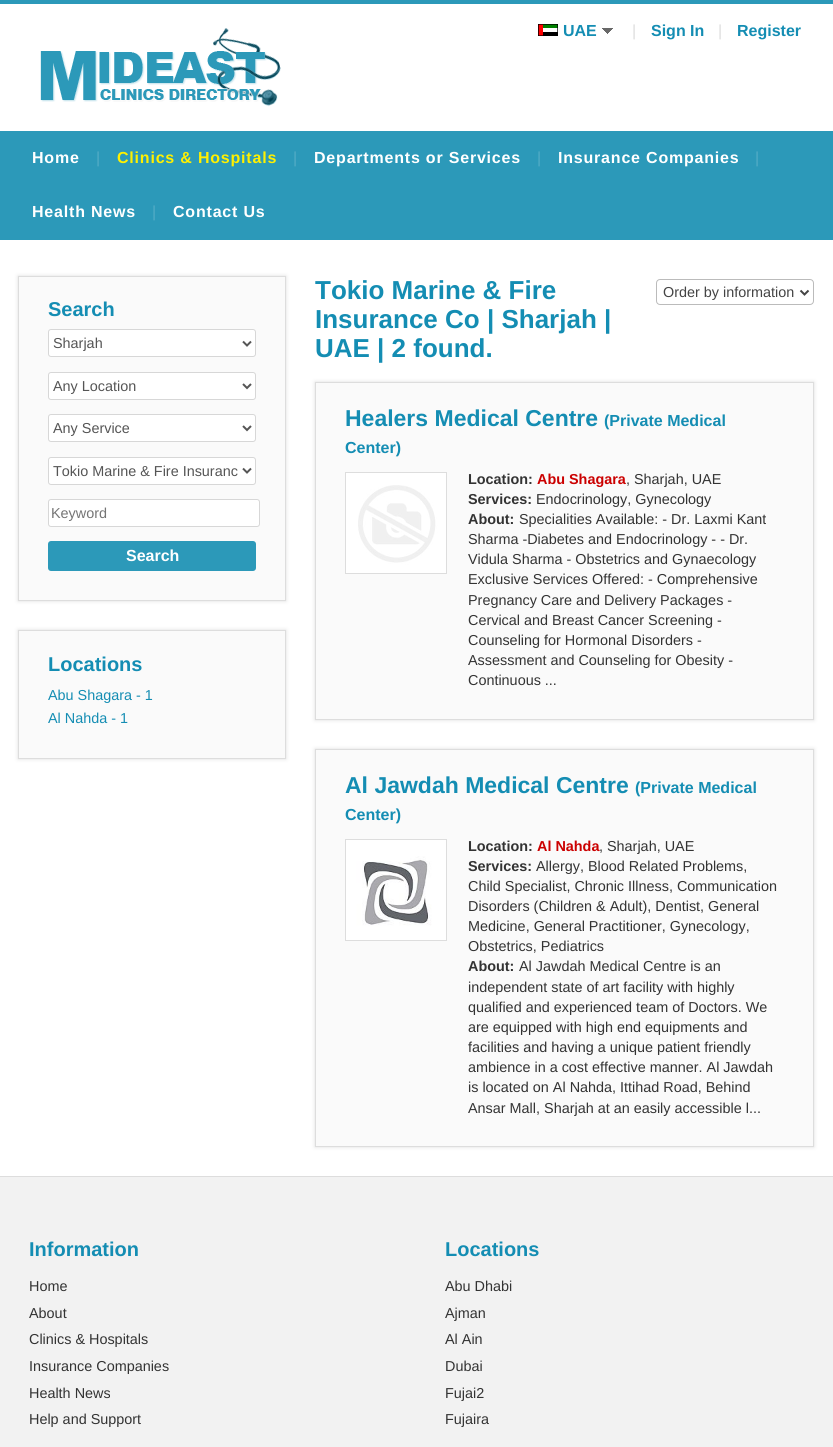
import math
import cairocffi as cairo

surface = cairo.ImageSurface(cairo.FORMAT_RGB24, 833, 1447)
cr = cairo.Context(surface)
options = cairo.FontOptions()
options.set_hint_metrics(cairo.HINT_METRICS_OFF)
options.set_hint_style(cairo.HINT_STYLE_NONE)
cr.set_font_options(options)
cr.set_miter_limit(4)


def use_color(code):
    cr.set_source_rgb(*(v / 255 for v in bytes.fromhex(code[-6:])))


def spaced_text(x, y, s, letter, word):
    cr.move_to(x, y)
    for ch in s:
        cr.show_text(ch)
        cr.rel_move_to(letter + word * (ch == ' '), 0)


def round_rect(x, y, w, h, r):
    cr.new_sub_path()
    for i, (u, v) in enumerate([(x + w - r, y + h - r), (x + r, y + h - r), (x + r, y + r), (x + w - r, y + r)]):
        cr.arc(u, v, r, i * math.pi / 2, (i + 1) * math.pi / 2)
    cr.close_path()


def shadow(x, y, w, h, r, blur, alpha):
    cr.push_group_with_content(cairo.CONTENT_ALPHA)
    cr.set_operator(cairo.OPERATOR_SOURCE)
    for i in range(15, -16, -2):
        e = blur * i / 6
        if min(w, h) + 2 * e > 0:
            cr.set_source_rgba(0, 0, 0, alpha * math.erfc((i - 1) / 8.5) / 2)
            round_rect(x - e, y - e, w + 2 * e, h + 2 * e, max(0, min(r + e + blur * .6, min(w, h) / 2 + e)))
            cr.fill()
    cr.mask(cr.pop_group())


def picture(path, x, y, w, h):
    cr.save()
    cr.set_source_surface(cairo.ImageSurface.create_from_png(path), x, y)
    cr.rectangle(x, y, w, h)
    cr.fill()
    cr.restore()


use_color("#ffffff")
cr.paint()
use_color("#2c99b9")
cr.rectangle(0, 0, 833, 4)
cr.fill()
picture("img1.png", 40, 28, 241, 79)
picture("img2.png", 538, 24, 20, 12)
cr.select_font_face("Liberation Sans", cairo.FONT_SLANT_NORMAL, cairo.FONT_WEIGHT_BOLD)
cr.set_font_size(16)
use_color("#148db3")
cr.move_to(563, 36)
cr.show_text("UAE")
picture("img3.png", 602, 28, 11, 6)
cr.select_font_face("Liberation Sans")
use_color("#dddddd")
cr.move_to(632, 36)
cr.show_text("|")
cr.select_font_face("Liberation Sans", cairo.FONT_SLANT_NORMAL, cairo.FONT_WEIGHT_BOLD)
use_color("#148db3")
cr.move_to(651, 36)
cr.show_text("Sign In")
cr.select_font_face("Liberation Sans")
use_color("#dddddd")
cr.move_to(718, 36)
cr.show_text("|")
cr.select_font_face("Liberation Sans", cairo.FONT_SLANT_NORMAL, cairo.FONT_WEIGHT_BOLD)
use_color("#148db3")
cr.move_to(737, 36)
cr.show_text("Register")
use_color("#2c99b9")
cr.rectangle(0, 131, 833, 109)
cr.fill()
use_color("#ffffff")
spaced_text(32, 163, "Home", 0.8, 0)
cr.select_font_face("Liberation Sans")
use_color("#52abc5")
spaced_text(96, 163, "|", 0.8, 0)
cr.select_font_face("Liberation Sans", cairo.FONT_SLANT_NORMAL, cairo.FONT_WEIGHT_BOLD)
use_color("#fff000")
spaced_text(117, 163, "Clinics & Hospitals", 0.8, 0)
cr.select_font_face("Liberation Sans")
use_color("#52abc5")
spaced_text(293, 163, "|", 0.8, 0)
cr.select_font_face("Liberation Sans", cairo.FONT_SLANT_NORMAL, cairo.FONT_WEIGHT_BOLD)
use_color("#ffffff")
spaced_text(314, 163, "Departments or Services", 0.8, 0)
cr.select_font_face("Liberation Sans")
use_color("#52abc5")
spaced_text(537, 163, "|", 0.8, 0)
cr.select_font_face("Liberation Sans", cairo.FONT_SLANT_NORMAL, cairo.FONT_WEIGHT_BOLD)
use_color("#ffffff")
spaced_text(558, 163, "Insurance Companies", 0.8, 0)
cr.select_font_face("Liberation Sans")
use_color("#52abc5")
spaced_text(755, 163, "|", 0.8, 0)
cr.select_font_face("Liberation Sans", cairo.FONT_SLANT_NORMAL, cairo.FONT_WEIGHT_BOLD)
use_color("#ffffff")
spaced_text(32, 217, "Health News", 0.8, 0)
cr.select_font_face("Liberation Sans")
use_color("#52abc5")
spaced_text(152, 217, "|", 0.8, 0)
cr.select_font_face("Liberation Sans", cairo.FONT_SLANT_NORMAL, cairo.FONT_WEIGHT_BOLD)
use_color("#ffffff")
spaced_text(173, 217, "Contact Us", 0.8, 0)
use_color("#dddddd")
shadow(18, 276, 268, 325, 0, 2, 1)
use_color("#fafafa")
cr.rectangle(18.5, 276.5, 267, 324)
cr.fill_preserve()
use_color("#dddddd")
cr.set_line_width(1)
cr.stroke()
cr.set_font_size(20)
use_color("#148db3")
cr.move_to(48, 316)
cr.show_text("Search")
use_color("#ffffff")
round_rect(48.5, 329.5, 207, 27, 2.5)
cr.fill_preserve()
use_color("#d7d7d7")
cr.stroke()
cr.new_path()
cr.move_to(243, 341.5)
cr.line_to(247, 345.5)
cr.line_to(251, 341.5)
use_color("#555555")
cr.set_line_width(2)
cr.stroke()
cr.select_font_face("Liberation Sans")
cr.set_font_size(14.4)
cr.move_to(53, 348)
cr.show_text("Sharjah")
use_color("#ffffff")
round_rect(48.5, 372.5, 207, 27, 2.5)
cr.fill_preserve()
use_color("#d7d7d7")
cr.set_line_width(1)
cr.stroke()
cr.new_path()
cr.move_to(243, 384)
cr.line_to(247, 388)
cr.line_to(251, 384)
use_color("#555555")
cr.set_line_width(2)
cr.stroke()
cr.move_to(53, 391)
cr.show_text("Any Location")
use_color("#ffffff")
round_rect(48.5, 414.5, 207, 27, 2.5)
cr.fill_preserve()
use_color("#d7d7d7")
cr.set_line_width(1)
cr.stroke()
cr.new_path()
cr.move_to(243, 426)
cr.line_to(247, 430)
cr.line_to(251, 426)
use_color("#555555")
cr.set_line_width(2)
cr.stroke()
cr.move_to(53, 433)
cr.show_text("Any Service")
use_color("#ffffff")
round_rect(48.5, 457.5, 207, 27, 2.5)
cr.fill_preserve()
use_color("#d7d7d7")
cr.set_line_width(1)
cr.stroke()
cr.new_path()
cr.move_to(243, 468.5)
cr.line_to(247, 472.5)
cr.line_to(251, 468.5)
use_color("#555555")
cr.set_line_width(2)
cr.stroke()
cr.move_to(53, 476)
cr.show_text("Tokio Marine & Fire Insuranc")
use_color("#ffffff")
round_rect(48.5, 499.5, 211, 27, 2.5)
cr.fill_preserve()
use_color("#d7d7d7")
cr.set_line_width(1)
cr.stroke()
use_color("#757575")
cr.move_to(51, 518)
cr.show_text("Keyword")
use_color("#2c99b9")
round_rect(48, 541, 208, 30, 3)
cr.fill()
cr.select_font_face("Liberation Sans", cairo.FONT_SLANT_NORMAL, cairo.FONT_WEIGHT_BOLD)
cr.set_font_size(16)
use_color("#ffffff")
cr.move_to(126, 561)
cr.show_text("Search")
use_color("#dddddd")
shadow(18, 630, 268, 129, 0, 2, 1)
use_color("#fafafa")
cr.rectangle(18.5, 630.5, 267, 128)
cr.fill_preserve()
use_color("#dddddd")
cr.stroke()
cr.set_font_size(20)
use_color("#148db3")
cr.move_to(48, 671)
cr.show_text("Locations")
cr.select_font_face("Liberation Sans")
cr.set_font_size(14.4)
cr.move_to(48, 700)
cr.show_text("Abu Shagara - 1")
cr.move_to(48, 723)
cr.show_text("Al Nahda - 1")
cr.select_font_face("Liberation Sans", cairo.FONT_SLANT_NORMAL, cairo.FONT_WEIGHT_BOLD)
cr.set_font_size(26)
cr.move_to(315, 299)
cr.show_text("Tokio Marine & Fire")
cr.move_to(315, 328)
cr.show_text("Insurance Co | Sharjah |")
cr.move_to(315, 357)
cr.show_text("UAE | 2 found.")
round_rect(656.5, 279.5, 157, 25, 3.5)
use_color("#bbbbbb")
cr.stroke()
cr.new_path()
cr.move_to(800.5, 290.5)
cr.line_to(804.5, 294.5)
cr.line_to(808.5, 290.5)
use_color("#444444")
cr.set_line_width(2)
cr.stroke()
cr.select_font_face("Liberation Sans")
cr.set_font_size(14.4)
cr.move_to(663, 297)
cr.show_text("Order by information")
use_color("#dddddd")
shadow(315, 382, 499, 338, 0, 2, 1)
use_color("#fafafa")
cr.rectangle(315.5, 382.5, 498, 337)
cr.fill_preserve()
use_color("#dddddd")
cr.set_line_width(1)
cr.stroke()
cr.select_font_face("Liberation Sans", cairo.FONT_SLANT_NORMAL, cairo.FONT_WEIGHT_BOLD)
cr.set_font_size(23)
use_color("#148db3")
cr.move_to(345, 426)
cr.show_text("Healers Medical Centre")
cr.set_font_size(16)
cr.move_to(604, 426)
cr.show_text("(Private Medical")
cr.move_to(345, 453)
cr.show_text("Center)")
cr.rectangle(345.5, 472.5, 101, 101)
use_color("#dddddd")
cr.stroke()
picture("img4.png", 346, 473, 100, 100)
cr.set_font_size(14.4)
use_color("#333333")
cr.move_to(468, 484)
cr.show_text("Location:")
use_color("#cb0000")
cr.move_to(537, 484)
cr.show_text("Abu Shagara")
cr.select_font_face("Liberation Sans")
use_color("#333333")
cr.move_to(626, 484)
cr.show_text(", Sharjah, UAE")
cr.select_font_face("Liberation Sans", cairo.FONT_SLANT_NORMAL, cairo.FONT_WEIGHT_BOLD)
cr.move_to(468, 504)
cr.show_text("Services:")
cr.select_font_face("Liberation Sans")
cr.move_to(536, 504)
cr.show_text("Endocrinology, Gynecology")
cr.select_font_face("Liberation Sans", cairo.FONT_SLANT_NORMAL, cairo.FONT_WEIGHT_BOLD)
cr.move_to(468, 524)
cr.show_text("About:")
cr.select_font_face("Liberation Sans")
cr.move_to(519, 524)
cr.show_text("Specialities Available: - Dr. Laxmi Kant")
cr.move_to(468, 544)
cr.show_text("Sharma -Diabetes and Endocrinology - - Dr.")
cr.move_to(468, 564)
cr.show_text("Vidula Sharma - Obstetrics and Gynaecology")
cr.move_to(468, 584)
cr.show_text("Exclusive Services Offered: - Comprehensive")
cr.move_to(468, 605)
cr.show_text("Pregnancy Care and Delivery Packages -")
cr.move_to(468, 625)
cr.show_text("Cervical and Breast Cancer Screening -")
cr.move_to(468, 645)
cr.show_text("Counseling for Hormonal Disorders -")
cr.move_to(468, 665)
cr.show_text("Assessment and Counseling for Obesity -")
cr.move_to(468, 685)
cr.show_text("Continuous ...")
use_color("#dddddd")
shadow(315, 749, 499, 398, 0, 2, 1)
use_color("#fafafa")
cr.rectangle(315.5, 749.5, 498, 397)
cr.fill_preserve()
use_color("#dddddd")
cr.stroke()
cr.select_font_face("Liberation Sans", cairo.FONT_SLANT_NORMAL, cairo.FONT_WEIGHT_BOLD)
cr.set_font_size(23)
use_color("#148db3")
cr.move_to(345, 793)
cr.show_text("Al Jawdah Medical Centre")
cr.set_font_size(16)
cr.move_to(635, 793)
cr.show_text("(Private Medical")
cr.move_to(345, 820)
cr.show_text("Center)")
cr.rectangle(345.5, 839.5, 101, 101)
use_color("#dddddd")
cr.stroke()
picture("img5.png", 346, 840, 100, 100)
cr.set_font_size(14.4)
use_color("#333333")
cr.move_to(468, 851)
cr.show_text("Location:")
use_color("#cb0000")
cr.move_to(537, 851)
cr.show_text("Al Nahda")
cr.select_font_face("Liberation Sans")
use_color("#333333")
cr.move_to(599, 851)
cr.show_text(", Sharjah, UAE")
cr.select_font_face("Liberation Sans", cairo.FONT_SLANT_NORMAL, cairo.FONT_WEIGHT_BOLD)
cr.move_to(468, 871)
cr.show_text("Services:")
cr.select_font_face("Liberation Sans")
cr.move_to(536, 871)
cr.show_text("Allergy, Blood Related Problems,")
cr.move_to(468, 891)
cr.show_text("Child Specialist, Chronic Illness, Communication")
cr.move_to(468, 911)
cr.show_text("Disorders (Children & Adult), Dentist, General")
cr.move_to(468, 931)
cr.show_text("Medicine, General Practitioner, Gynecology,")
cr.move_to(468, 951)
cr.show_text("Obstetrics, Pediatrics")
cr.select_font_face("Liberation Sans", cairo.FONT_SLANT_NORMAL, cairo.FONT_WEIGHT_BOLD)
cr.move_to(468, 971)
cr.show_text("About:")
cr.select_font_face("Liberation Sans")
cr.move_to(519, 971)
cr.show_text("Al Jawdah Medical Centre is an")
cr.move_to(468, 992)
cr.show_text("independent state of art facility with highly")
cr.move_to(468, 1012)
cr.show_text("qualified and experienced team of Doctors. We")
cr.move_to(468, 1032)
cr.show_text("are equipped with high end equipments and")
cr.move_to(468, 1052)
cr.show_text("facilities and having a unique patient friendly")
cr.move_to(468, 1072)
cr.show_text("ambience in a cost effective manner. Al Jawdah")
cr.move_to(468, 1092)
cr.show_text("is located on Al Nahda, Ittihad Road, Behind")
cr.move_to(468, 1113)
cr.show_text("Ansar Mall, Sharjah at an easily accessible l...")
use_color("#f2f2f2")
cr.rectangle(0, 1177, 833, 270)
cr.fill()
use_color("#dddddd")
cr.rectangle(0, 1176, 833, 1)
cr.fill()
cr.select_font_face("Liberation Sans", cairo.FONT_SLANT_NORMAL, cairo.FONT_WEIGHT_BOLD)
cr.set_font_size(20)
use_color("#148db3")
cr.move_to(29, 1256)
cr.show_text("Information")
cr.select_font_face("Liberation Sans")
cr.set_font_size(14.4)
use_color("#333333")
cr.move_to(29, 1291)
cr.show_text("Home")
cr.move_to(29, 1318)
cr.show_text("About")
cr.move_to(29, 1344)
cr.show_text("Clinics & Hospitals")
cr.move_to(29, 1371)
cr.show_text("Insurance Companies")
cr.move_to(29, 1398)
cr.show_text("Health News")
cr.move_to(29, 1424)
cr.show_text("Help and Support")
cr.select_font_face("Liberation Sans", cairo.FONT_SLANT_NORMAL, cairo.FONT_WEIGHT_BOLD)
cr.set_font_size(20)
use_color("#148db3")
cr.move_to(445, 1256)
cr.show_text("Locations")
cr.select_font_face("Liberation Sans")
cr.set_font_size(14.4)
use_color("#333333")
cr.move_to(445, 1291)
cr.show_text("Abu Dhabi")
cr.move_to(445, 1318)
cr.show_text("Ajman")
cr.move_to(445, 1344)
cr.show_text("Al Ain")
cr.move_to(445, 1371)
cr.show_text("Dubai")
cr.move_to(445, 1398)
cr.show_text("Fujai2")
cr.move_to(445, 1424)
cr.show_text("Fujaira")
surface.write_to_png("result.png")
